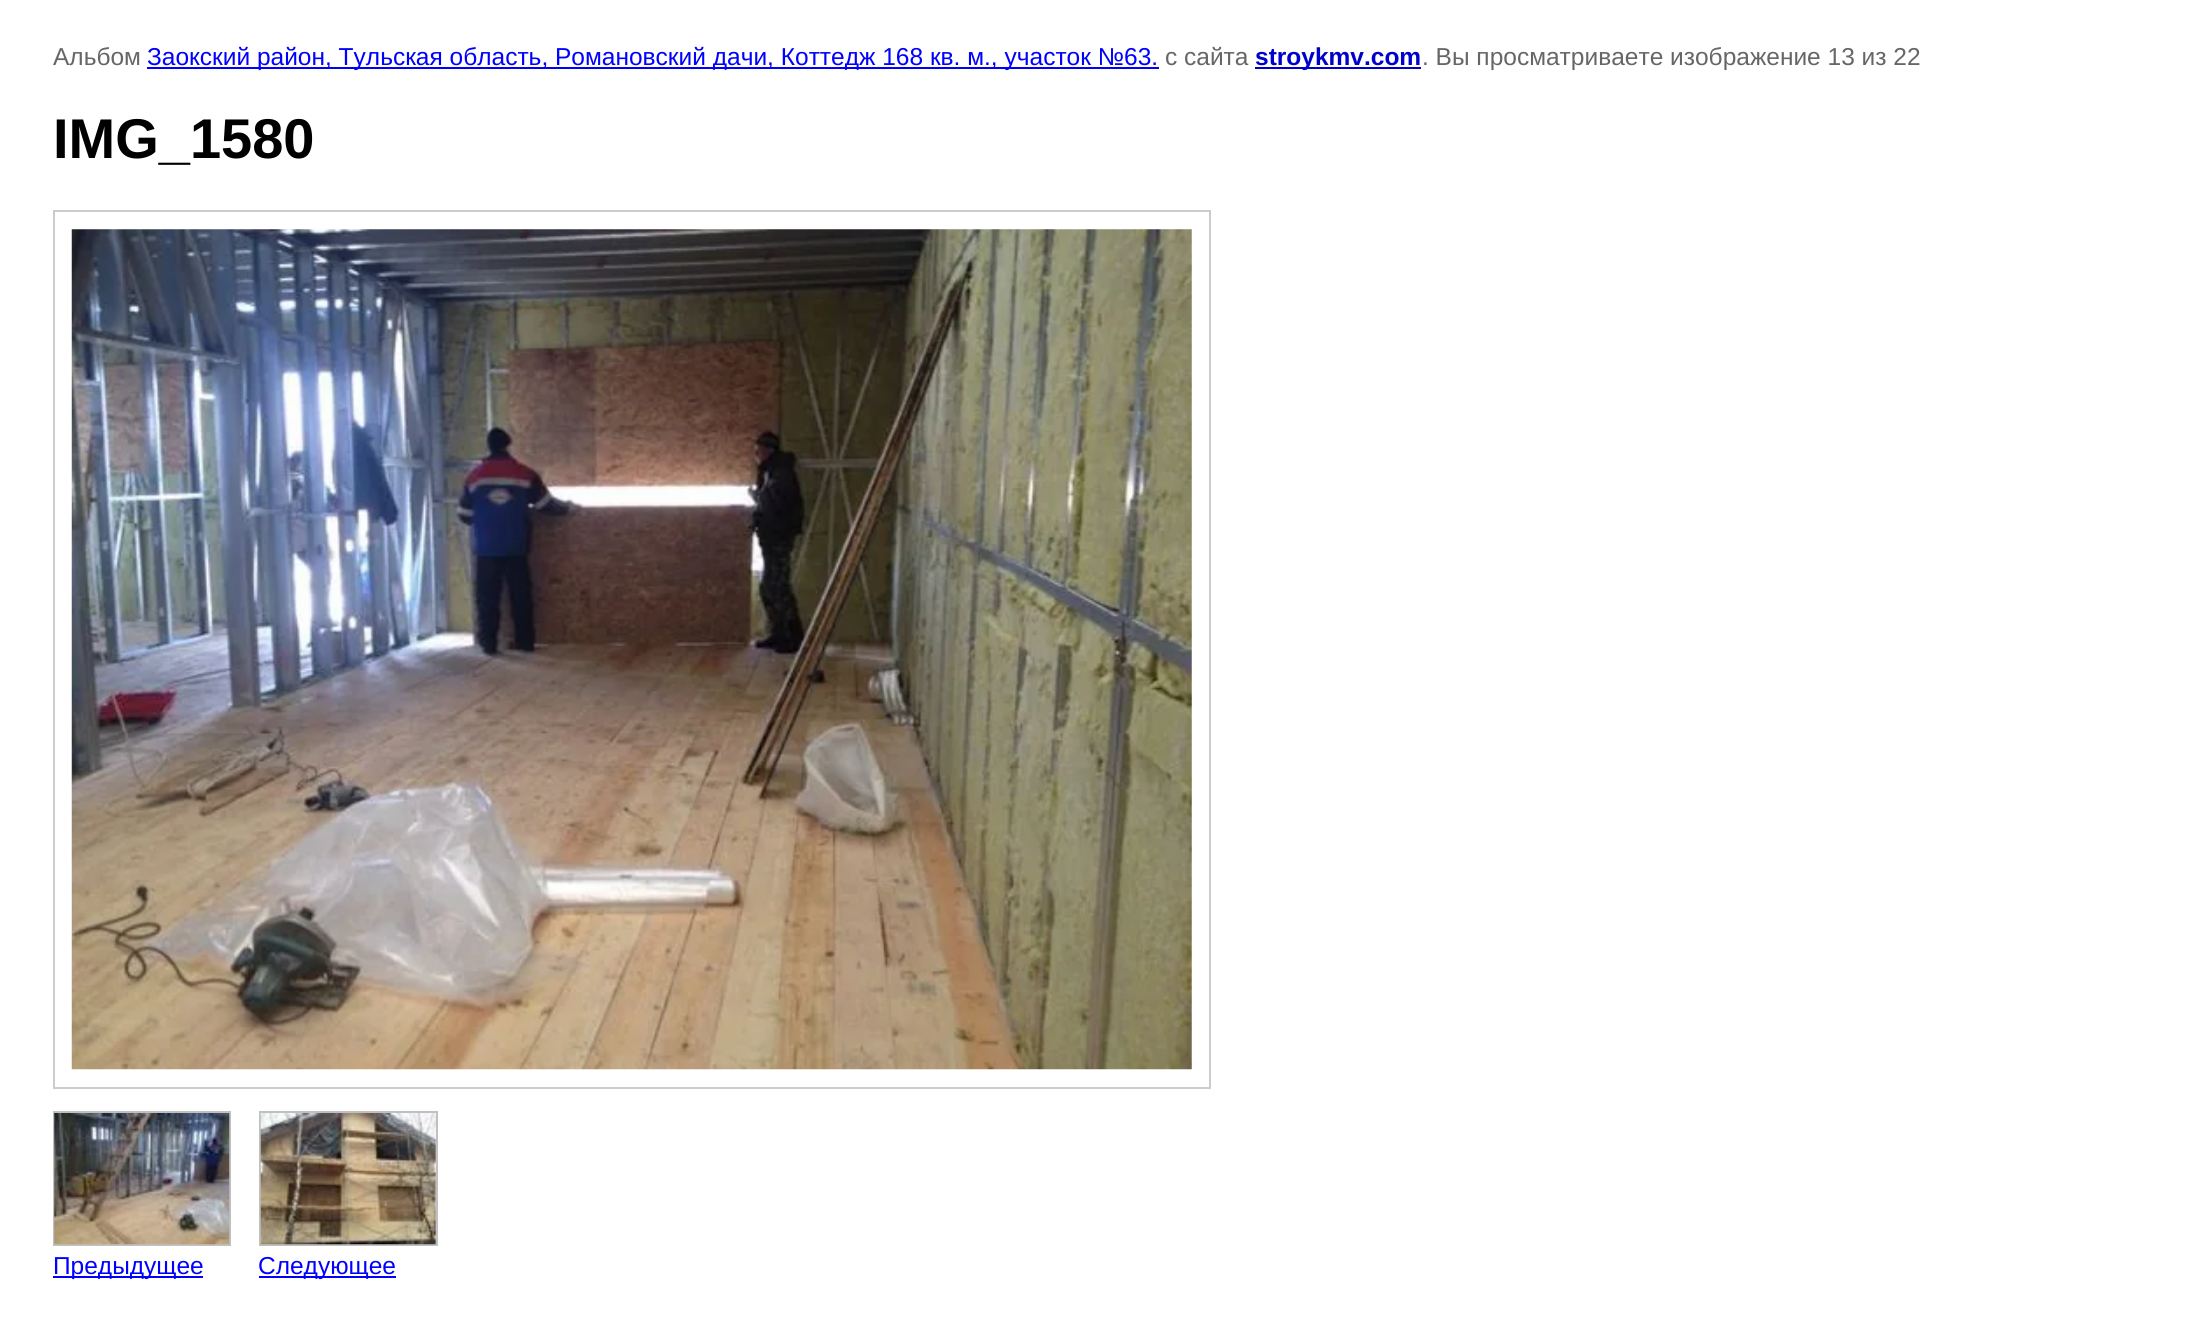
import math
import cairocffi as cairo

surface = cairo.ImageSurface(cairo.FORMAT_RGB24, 2185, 1324)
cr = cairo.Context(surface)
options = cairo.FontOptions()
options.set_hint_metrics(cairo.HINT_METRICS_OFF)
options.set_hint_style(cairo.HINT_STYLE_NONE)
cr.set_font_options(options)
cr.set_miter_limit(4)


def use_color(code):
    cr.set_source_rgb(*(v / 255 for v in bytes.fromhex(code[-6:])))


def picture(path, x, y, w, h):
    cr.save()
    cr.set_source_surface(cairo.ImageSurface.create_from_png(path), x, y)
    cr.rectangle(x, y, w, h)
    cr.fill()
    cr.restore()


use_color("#ffffff")
cr.paint()
cr.select_font_face("Liberation Sans")
cr.set_font_size(24.5)
use_color("#666666")
cr.move_to(53, 65)
cr.show_text("Альбом")
use_color("#0000ff")
cr.rectangle(147, 67, 1012, 2)
cr.fill()
cr.move_to(147, 65)
cr.show_text("Заокский район, Тульская область, Романовский дачи, Коттедж 168 кв. м., участок №63.")
use_color("#666666")
cr.move_to(1165, 65)
cr.show_text("с сайта")
use_color("#0000cc")
cr.rectangle(1255, 67, 166, 2)
cr.fill()
cr.select_font_face("Liberation Sans", cairo.FONT_SLANT_NORMAL, cairo.FONT_WEIGHT_BOLD)
cr.move_to(1255, 65)
cr.show_text("stroykmv.com")
cr.select_font_face("Liberation Sans")
use_color("#666666")
cr.move_to(1422, 65)
cr.show_text(". Вы просматриваете изображение 13 из 22")
cr.select_font_face("Liberation Sans", cairo.FONT_SLANT_NORMAL, cairo.FONT_WEIGHT_BOLD)
cr.set_font_size(56)
use_color("#000000")
cr.move_to(53, 158)
cr.show_text("IMG_1580")
cr.rectangle(54, 211, 1156, 877)
use_color("#cccccc")
cr.stroke()
picture("img1.png", 71, 229, 1121, 841)
cr.rectangle(54, 1112, 176, 133)
use_color("#c0c0c0")
cr.stroke()
picture("img2.png", 54, 1113, 176, 132)
use_color("#0000ff")
cr.rectangle(53, 1276, 150, 2)
cr.fill()
cr.select_font_face("Liberation Sans")
cr.set_font_size(24.5)
cr.move_to(53, 1274)
cr.show_text("Предыдущее")
cr.rectangle(260, 1112, 177, 133)
use_color("#c0c0c0")
cr.stroke()
picture("img3.png", 260, 1113, 176, 132)
use_color("#0000ff")
cr.rectangle(259, 1276, 137, 2)
cr.fill()
cr.move_to(258, 1274)
cr.show_text("Следующее")
surface.write_to_png("result.png")
